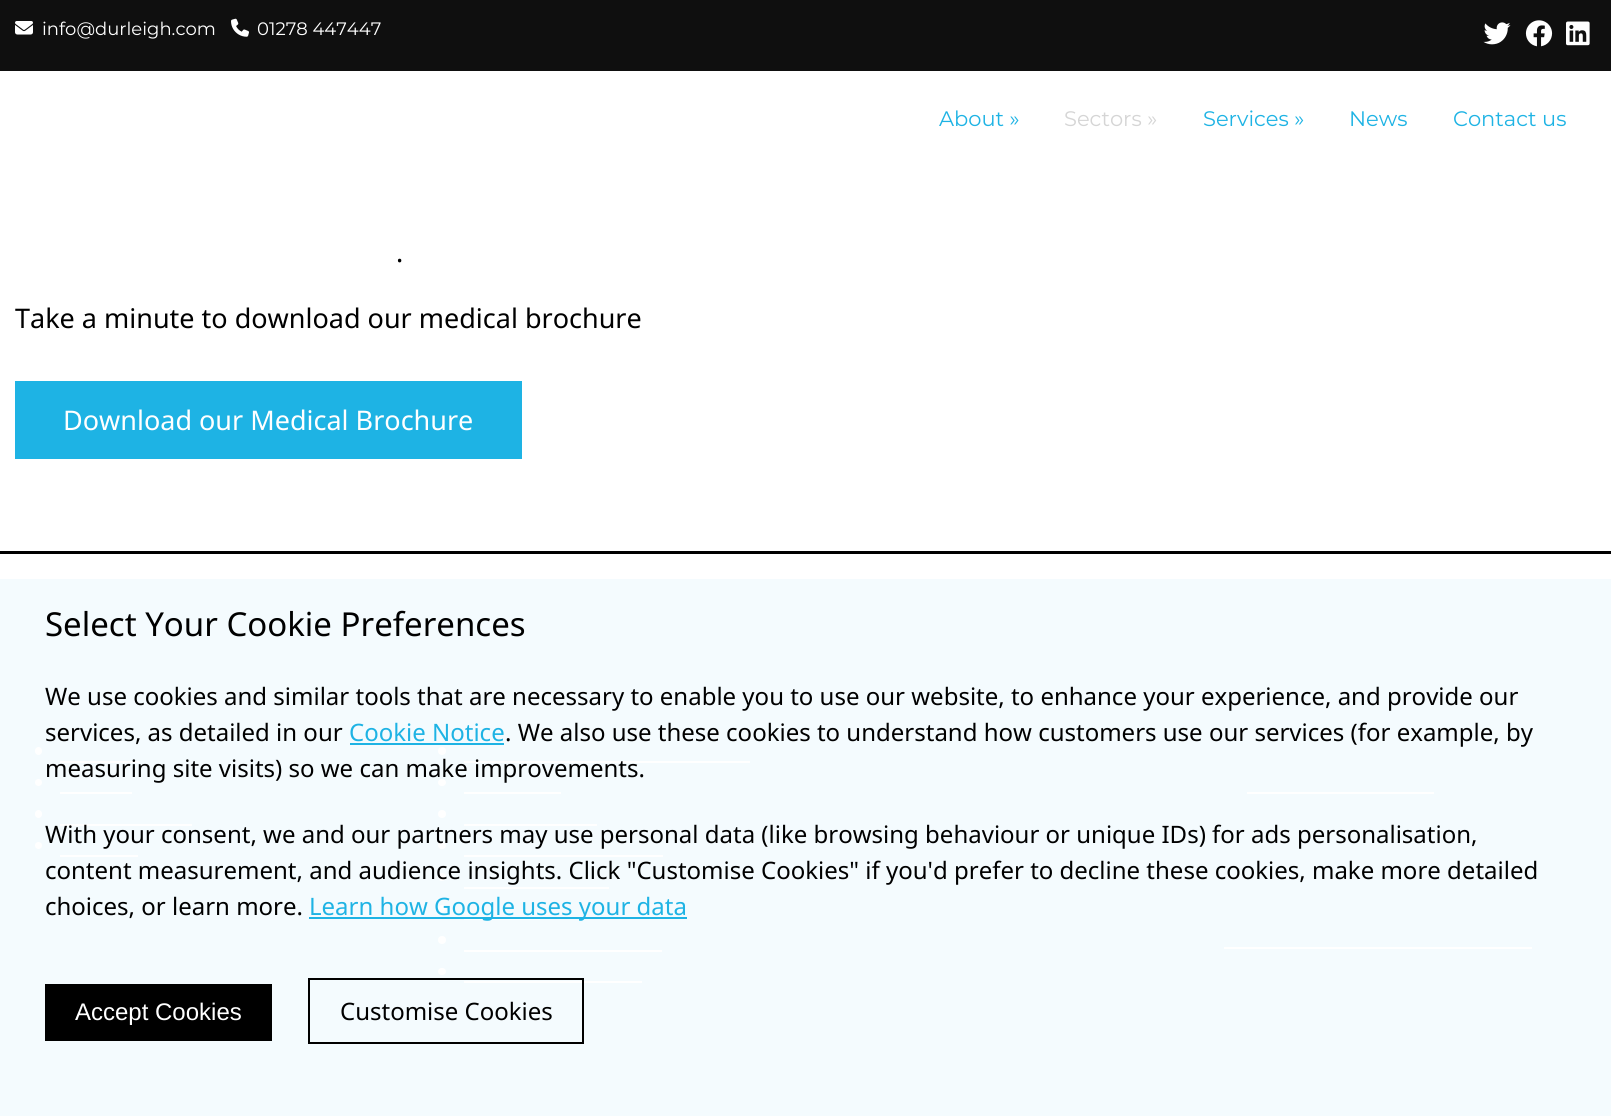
import math
import cairocffi as cairo

surface = cairo.ImageSurface(cairo.FORMAT_RGB24, 1611, 1116)
cr = cairo.Context(surface)
options = cairo.FontOptions()
options.set_hint_metrics(cairo.HINT_METRICS_OFF)
options.set_hint_style(cairo.HINT_STYLE_NONE)
cr.set_font_options(options)
cr.set_miter_limit(4)


def use_color(code):
    cr.set_source_rgb(*(v / 255 for v in bytes.fromhex(code[-6:])))


def round_rect(x, y, w, h, r):
    cr.new_sub_path()
    for i, (u, v) in enumerate([(x + w - r, y + h - r), (x + r, y + h - r), (x + r, y + r), (x + w - r, y + r)]):
        cr.arc(u, v, r, i * math.pi / 2, (i + 1) * math.pi / 2)
    cr.close_path()


def picture(path, x, y, w, h):
    cr.save()
    cr.set_source_surface(cairo.ImageSurface.create_from_png(path), x, y)
    cr.rectangle(x, y, w, h)
    cr.fill()
    cr.restore()


use_color("#ffffff")
cr.paint()
use_color("#0f0f0f")
cr.rectangle(0, 0, 1611, 71)
cr.fill()
picture("img1.png", 15, 21, 18, 14)
cr.select_font_face("Montserrat Thin")
cr.set_font_size(18)
use_color("#ffffff")
cr.move_to(42, 35)
cr.show_text("info@durleigh.com")
picture("img2.png", 231, 18, 18, 19)
cr.move_to(257, 35)
cr.show_text("01278 447447")
picture("img3.png", 1483, 22, 28, 23)
picture("img4.png", 1525, 20, 28, 27)
picture("img5.png", 1566, 21, 24, 25)
cr.set_font_size(21)
use_color("#1eb3e4")
cr.move_to(939, 126)
cr.show_text("About »")
use_color("#d5d5d5")
cr.move_to(1064, 126)
cr.show_text("Sectors »")
use_color("#1eb3e4")
cr.move_to(1203, 126)
cr.show_text("Services »")
cr.move_to(1349, 126)
cr.show_text("News")
cr.move_to(1453, 126)
cr.show_text("Contact us")
cr.select_font_face("Noto Sans")
cr.set_font_size(27)
use_color("#000000")
cr.move_to(396, 262)
cr.show_text(".")
cr.move_to(15, 328)
cr.show_text("Take a minute to download our medical brochure")
use_color("#1eb3e4")
cr.rectangle(15, 381, 507, 78)
cr.fill()
use_color("#ffffff")
cr.move_to(63, 430)
cr.show_text("Download our Medical Brochure")
use_color("#f4fbfe")
cr.rectangle(0, 579, 1611, 537)
cr.fill()
use_color("#ffffff")
round_rect(35, 747, 7, 8, 3.5)
cr.fill()
cr.rectangle(60, 761, 80, 2)
cr.fill()
cr.arc(38.5, 782.5, 3.5, 0, 2 * math.pi)
cr.fill()
cr.rectangle(60, 792, 72, 2)
cr.fill()
round_rect(35, 810, 7, 8, 3.5)
cr.fill()
cr.rectangle(60, 824, 132, 2)
cr.fill()
cr.arc(38.5, 845.5, 3.5, 0, 2 * math.pi)
cr.fill()
cr.rectangle(60, 855, 78, 2)
cr.fill()
cr.arc(442, 751, 4, 0, 2 * math.pi)
cr.fill()
cr.rectangle(464, 761, 286, 2)
cr.fill()
round_rect(438, 779, 8, 7, 3.5)
cr.fill()
cr.rectangle(464, 792, 97, 2)
cr.fill()
cr.arc(442, 814, 4, 0, 2 * math.pi)
cr.fill()
cr.rectangle(464, 824, 133, 2)
cr.fill()
round_rect(438, 842, 8, 7, 3.5)
cr.fill()
cr.rectangle(464, 855, 199, 2)
cr.fill()
cr.arc(442, 877, 4, 0, 2 * math.pi)
cr.fill()
cr.rectangle(464, 887, 145, 2)
cr.fill()
round_rect(438, 905, 8, 7, 3.5)
cr.fill()
cr.rectangle(464, 919, 76, 1)
cr.fill()
cr.arc(442, 940, 4, 0, 2 * math.pi)
cr.fill()
cr.rectangle(464, 950, 198, 2)
cr.fill()
round_rect(438, 968, 8, 7, 3.5)
cr.fill()
cr.rectangle(464, 981, 178, 2)
cr.fill()
cr.rectangle(1247, 792, 187, 2)
cr.fill()
cr.rectangle(1224, 947, 308, 2)
cr.fill()
use_color("#000000")
cr.rectangle(0, 551, 1611, 3)
cr.fill()
cr.set_font_size(33)
cr.move_to(45, 636)
cr.show_text("Select Your Cookie Preferences")
cr.set_font_size(24)
cr.move_to(45, 705)
cr.show_text("We use cookies and similar tools that are necessary to enable you to use our website, to enhance your experience, and provide our")
cr.move_to(45, 741)
cr.show_text("services, as detailed in our")
use_color("#1eb3e4")
cr.move_to(349, 741)
cr.show_text("Cookie Notice")
cr.rectangle(350, 743, 154, 2)
cr.fill()
use_color("#000000")
cr.move_to(505, 741)
cr.show_text(". We also use these cookies to understand how customers use our services (for example, by")
cr.move_to(45, 777)
cr.show_text("measuring site visits) so we can make improvements.")
cr.move_to(45, 843)
cr.show_text("With your consent, we and our partners may use personal data (like browsing behaviour or unique IDs) for ads personalisation,")
cr.move_to(45, 879)
cr.show_text("content measurement, and audience insights. Click \"Customise Cookies\" if you'd prefer to decline these cookies, make more detailed")
cr.move_to(45, 915)
cr.show_text("choices, or learn more.")
use_color("#1eb3e4")
cr.rectangle(309, 917, 378, 2)
cr.fill()
cr.move_to(309, 915)
cr.show_text("Learn how Google uses your data")
use_color("#000000")
cr.rectangle(45, 984, 227, 57)
cr.fill()
cr.select_font_face("Liberation Sans")
use_color("#ffffff")
cr.move_to(75, 1020)
cr.show_text("Accept Cookies")
cr.rectangle(309, 979, 274, 64)
use_color("#000000")
cr.stroke()
cr.select_font_face("Noto Sans")
cr.move_to(340, 1020)
cr.show_text("Customise Cookies")
surface.write_to_png("result.png")
